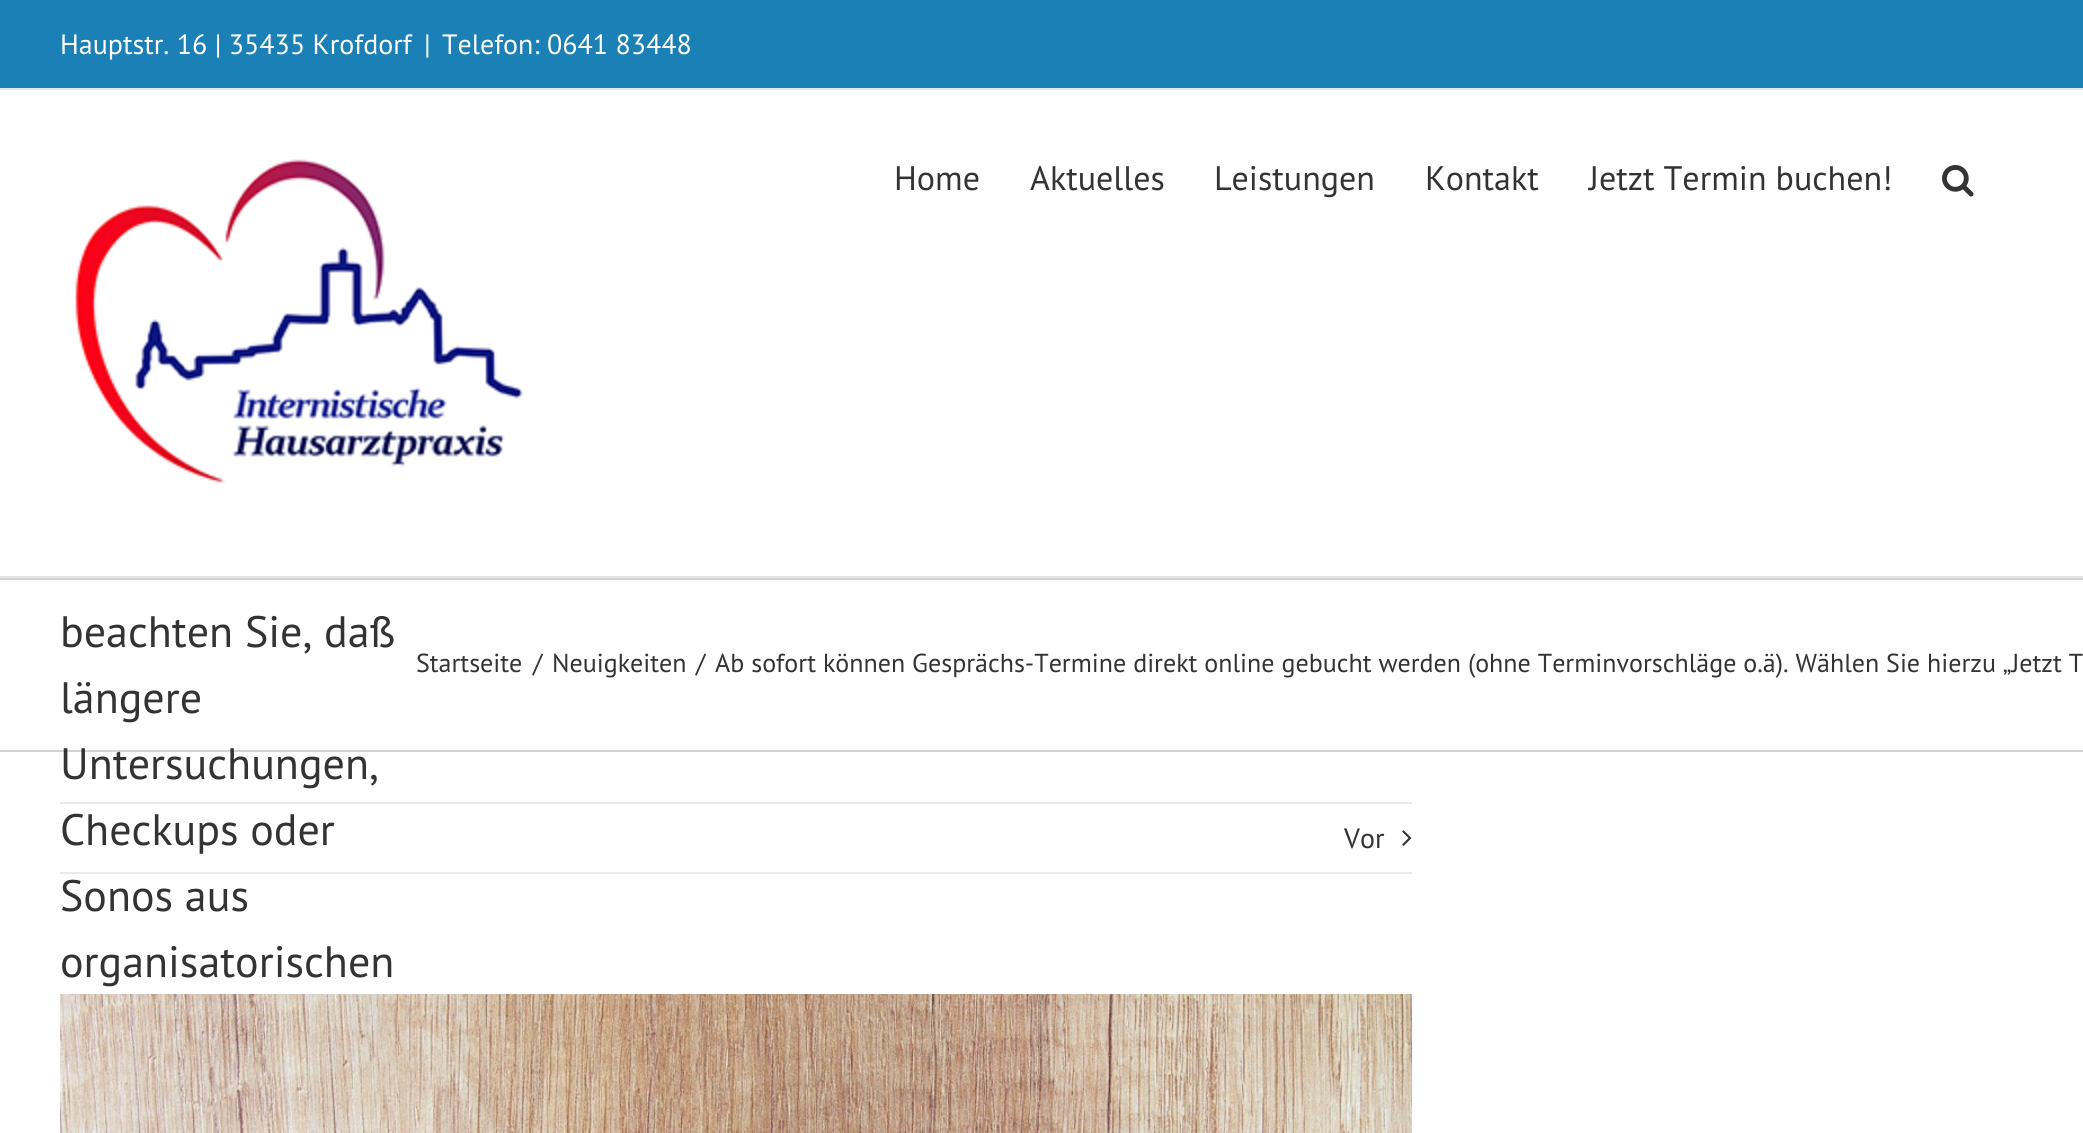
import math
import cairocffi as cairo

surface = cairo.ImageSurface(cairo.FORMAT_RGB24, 2083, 1133)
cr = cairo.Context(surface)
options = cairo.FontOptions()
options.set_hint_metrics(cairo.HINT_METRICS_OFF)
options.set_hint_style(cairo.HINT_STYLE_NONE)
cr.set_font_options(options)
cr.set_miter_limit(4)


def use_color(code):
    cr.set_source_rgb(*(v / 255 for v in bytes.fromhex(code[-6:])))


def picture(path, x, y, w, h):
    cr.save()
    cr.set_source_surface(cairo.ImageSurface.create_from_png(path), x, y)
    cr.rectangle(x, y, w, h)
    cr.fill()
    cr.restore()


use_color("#ffffff")
cr.paint()
use_color("#1a80b6")
cr.rectangle(0, 0, 2083, 88)
cr.fill()
use_color("#e5e5e5")
cr.rectangle(0, 88, 2083, 2)
cr.fill()
cr.select_font_face("PT Sans")
cr.set_font_size(28)
use_color("#ffffff")
cr.move_to(60, 54)
cr.show_text("Hauptstr. 16 | 35435 Krofdorf")
cr.move_to(424, 54)
cr.show_text("|")
cr.move_to(442, 54)
cr.show_text("Telefon: 0641 83448")
use_color("#e5e5e5")
cr.rectangle(0, 576, 2083, 2)
cr.fill()
picture("img1.png", 75, 159, 448, 324)
cr.set_font_size(34)
use_color("#333333")
cr.move_to(894, 190)
cr.show_text("Home")
cr.move_to(1030, 190)
cr.show_text("Aktuelles")
cr.move_to(1214, 190)
cr.show_text("Leistungen")
cr.move_to(1425, 190)
cr.show_text("Kontakt")
cr.move_to(1589, 190)
cr.show_text("Jetzt Termin buchen!")
picture("img2.png", 1942, 165, 32, 32)
use_color("#d2d3d4")
cr.rectangle(0, 578, 2083, 2)
cr.fill()
cr.rectangle(0, 750, 2083, 2)
cr.fill()
cr.set_font_size(44)
use_color("#333333")
cr.move_to(60, 647)
cr.show_text("beachten Sie, daß")
cr.move_to(60, 713)
cr.show_text("längere")
cr.move_to(60, 779)
cr.show_text("Untersuchungen,")
cr.move_to(60, 845)
cr.show_text("Checkups oder")
cr.move_to(60, 911)
cr.show_text("Sonos aus")
cr.move_to(60, 977)
cr.show_text("organisatorischen")
cr.set_font_size(26)
cr.move_to(416, 672)
cr.show_text("Startseite")
cr.move_to(533, 672)
cr.show_text("/")
cr.move_to(552, 672)
cr.show_text("Neuigkeiten")
cr.move_to(696, 672)
cr.show_text("/")
cr.move_to(715, 672)
cr.show_text("Ab sofort können Gesprächs-Termine direkt online gebucht werden (ohne Terminvorschläge o.ä). Wählen Sie hierzu „Jetzt T")
use_color("#ebeaea")
cr.rectangle(60, 802, 1352, 2)
cr.fill()
cr.rectangle(60, 872, 1352, 2)
cr.fill()
cr.set_font_size(28)
use_color("#333333")
cr.move_to(1344, 848)
cr.show_text("Vor")
picture("img3.png", 1402, 830, 10, 16)
picture("img4.png", 60, 994, 1352, 139)
surface.write_to_png("result.png")
